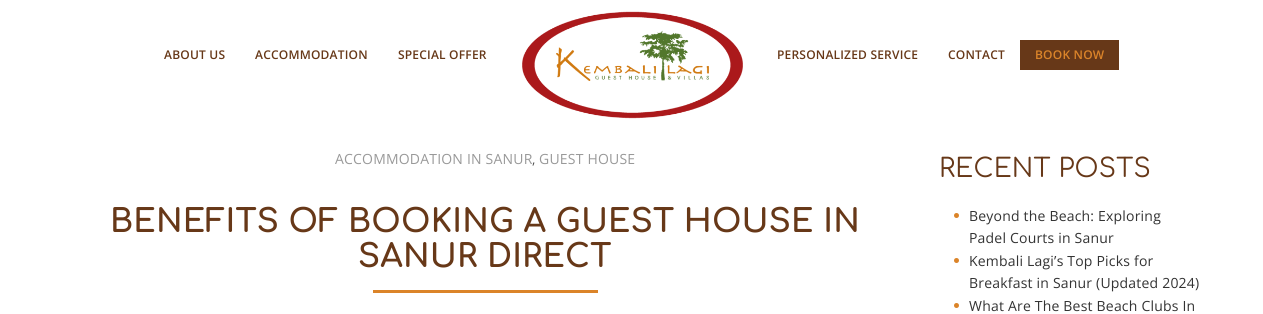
import math
import cairocffi as cairo

surface = cairo.ImageSurface(cairo.FORMAT_RGB24, 1263, 314)
cr = cairo.Context(surface)
options = cairo.FontOptions()
options.set_hint_metrics(cairo.HINT_METRICS_OFF)
options.set_hint_style(cairo.HINT_STYLE_NONE)
cr.set_font_options(options)
cr.set_miter_limit(4)


def use_color(code):
    cr.set_source_rgb(*(v / 255 for v in bytes.fromhex(code[-6:])))


def spaced_text(x, y, s, letter, word):
    cr.move_to(x, y)
    for ch in s:
        cr.show_text(ch)
        cr.rel_move_to(letter + word * (ch == ' '), 0)


def picture(path, x, y, w, h):
    cr.save()
    cr.set_source_surface(cairo.ImageSurface.create_from_png(path), x, y)
    cr.rectangle(x, y, w, h)
    cr.fill()
    cr.restore()


use_color("#ffffff")
cr.paint()
cr.select_font_face("Open Sans SemiBold")
cr.set_font_size(12)
use_color("#673818")
spaced_text(164, 59, "ABOUT US", 0.2, 0)
spaced_text(255, 59, "ACCOMMODATION", 0.2, 0)
spaced_text(398, 59, "SPECIAL OFFER", 0.2, 0)
picture("img1.png", 522, 11, 221, 108)
spaced_text(777, 59, "PERSONALIZED SERVICE", 0.2, 0)
spaced_text(948, 59, "CONTACT", 0.2, 0)
cr.rectangle(1020, 40, 99, 30)
cr.fill()
use_color("#db8429")
spaced_text(1035, 59, "BOOK NOW", 0.2, 0)
cr.select_font_face("Open Sans")
cr.set_font_size(14)
use_color("#999999")
spaced_text(335, 164, "ACCOMMODATION IN SANUR", 0.2, 0)
cr.set_font_size(13)
use_color("#4d4d4d")
spaced_text(532, 164, ",", 0.2, 0)
cr.set_font_size(14)
use_color("#999999")
spaced_text(539, 164, "GUEST HOUSE", 0.2, 0)
cr.select_font_face("Comfortaa", cairo.FONT_SLANT_NORMAL, cairo.FONT_WEIGHT_BOLD)
cr.set_font_size(32)
use_color("#673818")
spaced_text(110, 232, "BENEFITS OF BOOKING A GUEST HOUSE IN", 0.2, 0)
spaced_text(358, 267, "SANUR DIRECT", 0.2, 0)
use_color("#db8429")
cr.rectangle(373, 290, 225, 3)
cr.fill()
cr.select_font_face("Comfortaa")
cr.set_font_size(26)
use_color("#673818")
spaced_text(939, 177, "RECENT POSTS", 0.2, 0)
use_color("#db8429")
cr.new_path()
cr.arc(956.5, 215.5, 2.5, 0, 2 * math.pi)
cr.fill()
cr.select_font_face("Open Sans")
cr.set_font_size(14)
use_color("#333333")
spaced_text(969, 221, "Beyond the Beach: Exploring", 0.2, 0)
spaced_text(969, 243, "Padel Courts in Sanur", 0.2, 0)
use_color("#db8429")
cr.new_path()
cr.arc(956.5, 260.5, 2.5, 0, 2 * math.pi)
cr.fill()
use_color("#333333")
spaced_text(969, 266, "Kembali Lagi’s Top Picks for", 0.2, 0)
spaced_text(969, 288, "Breakfast in Sanur (Updated 2024)", 0.2, 0)
use_color("#db8429")
cr.new_path()
cr.arc(956.5, 305.5, 2.5, 0, 2 * math.pi)
cr.fill()
use_color("#333333")
spaced_text(969, 311, "What Are The Best Beach Clubs In", 0.2, 0)
surface.write_to_png("result.png")
